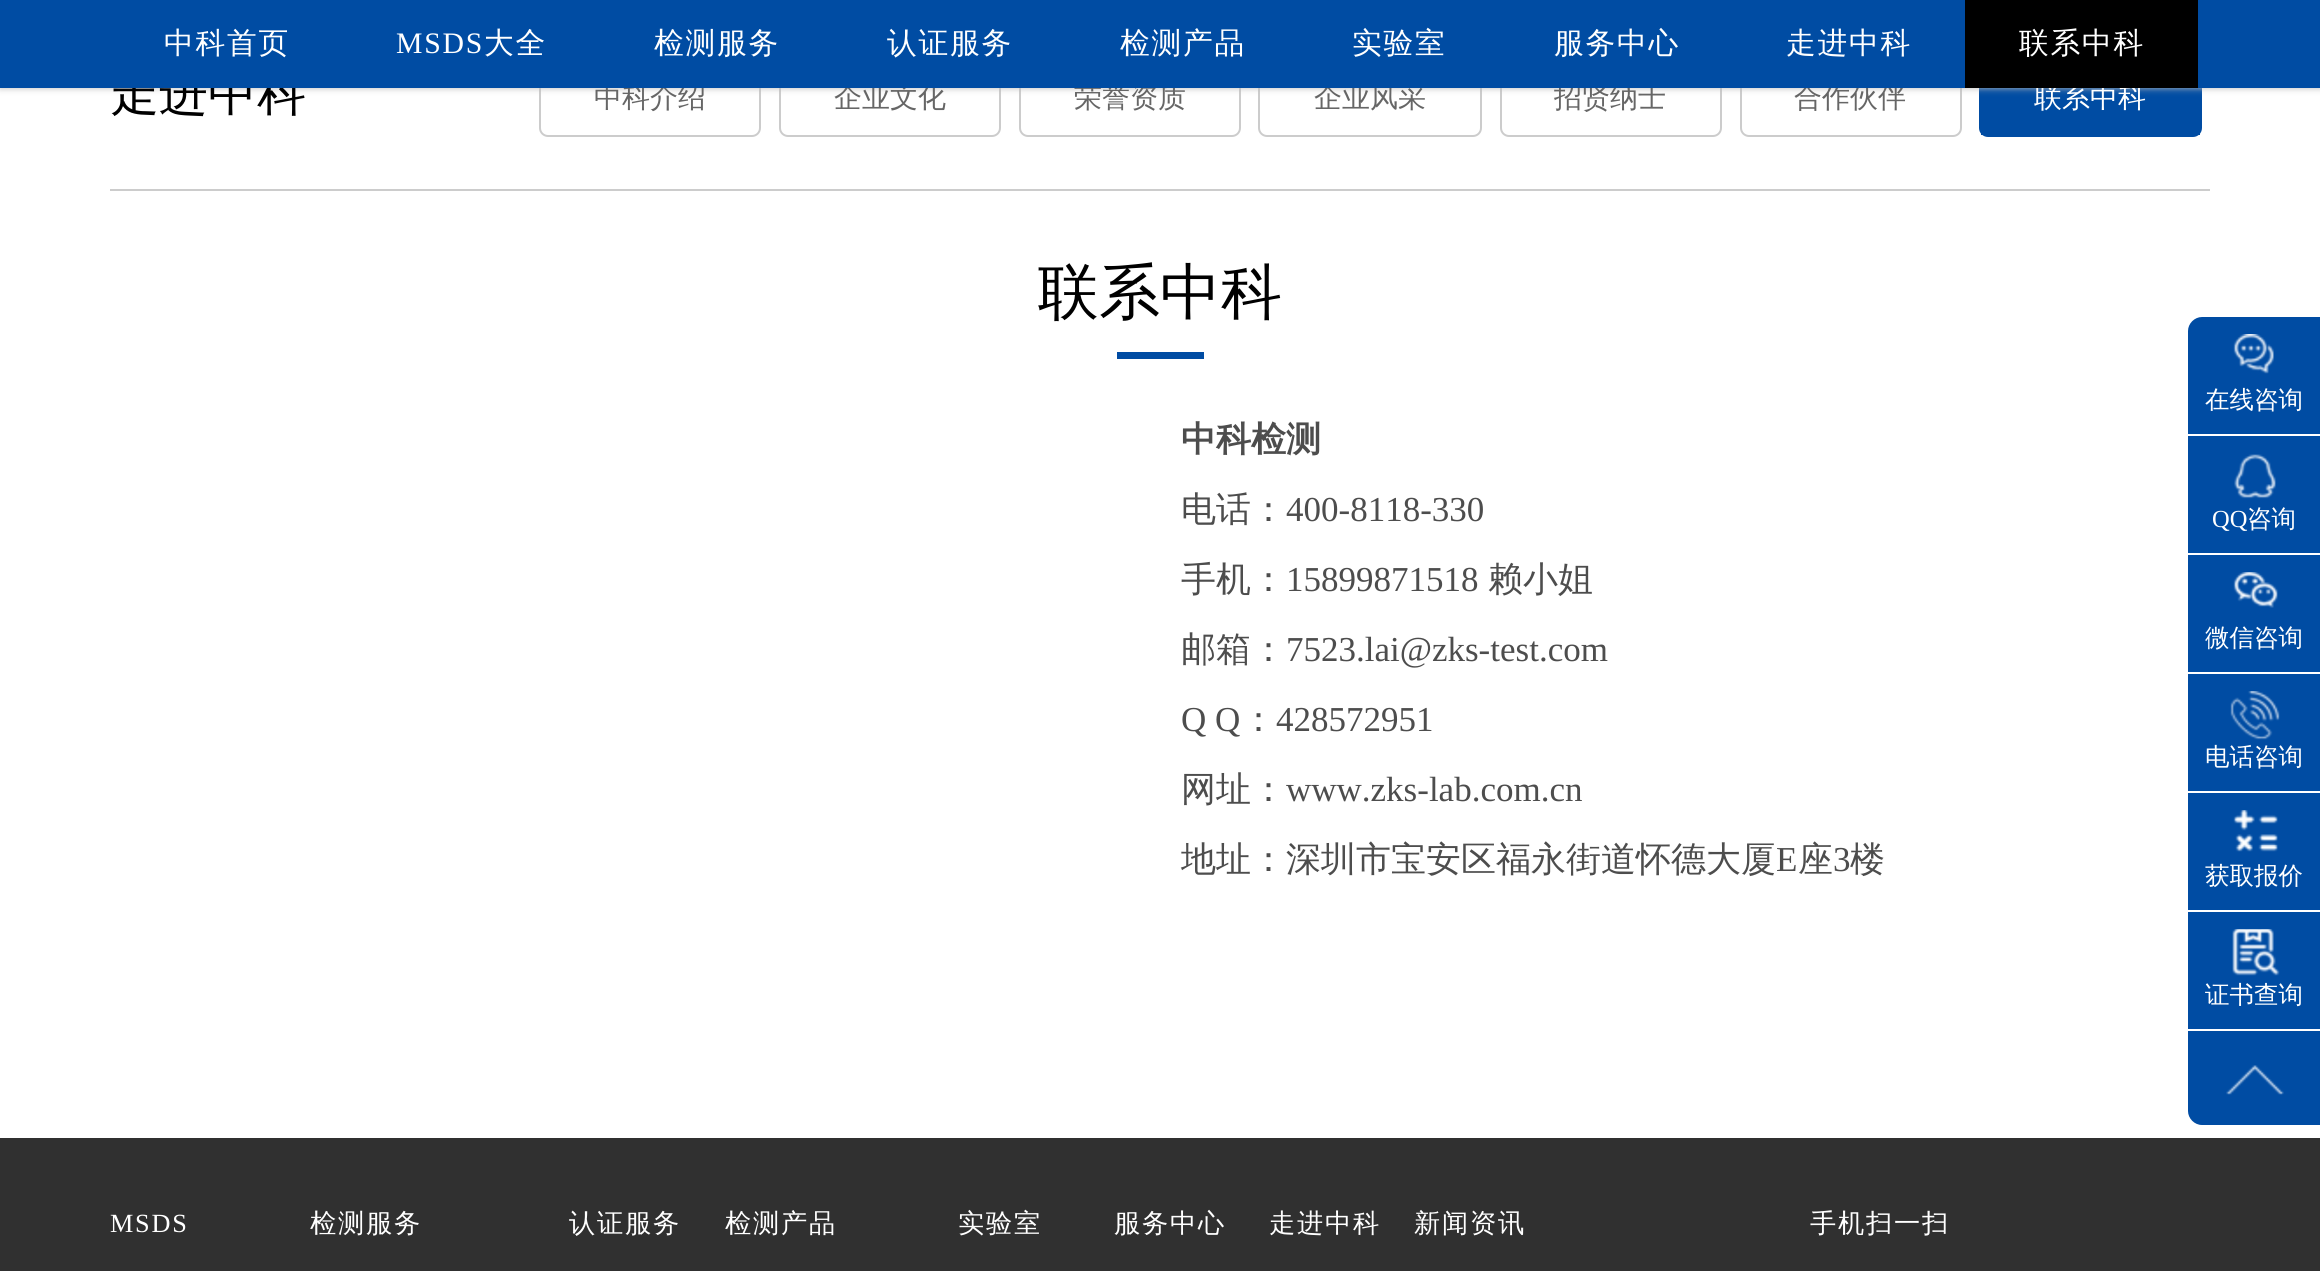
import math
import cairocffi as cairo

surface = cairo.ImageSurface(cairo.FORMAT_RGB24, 2320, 1271)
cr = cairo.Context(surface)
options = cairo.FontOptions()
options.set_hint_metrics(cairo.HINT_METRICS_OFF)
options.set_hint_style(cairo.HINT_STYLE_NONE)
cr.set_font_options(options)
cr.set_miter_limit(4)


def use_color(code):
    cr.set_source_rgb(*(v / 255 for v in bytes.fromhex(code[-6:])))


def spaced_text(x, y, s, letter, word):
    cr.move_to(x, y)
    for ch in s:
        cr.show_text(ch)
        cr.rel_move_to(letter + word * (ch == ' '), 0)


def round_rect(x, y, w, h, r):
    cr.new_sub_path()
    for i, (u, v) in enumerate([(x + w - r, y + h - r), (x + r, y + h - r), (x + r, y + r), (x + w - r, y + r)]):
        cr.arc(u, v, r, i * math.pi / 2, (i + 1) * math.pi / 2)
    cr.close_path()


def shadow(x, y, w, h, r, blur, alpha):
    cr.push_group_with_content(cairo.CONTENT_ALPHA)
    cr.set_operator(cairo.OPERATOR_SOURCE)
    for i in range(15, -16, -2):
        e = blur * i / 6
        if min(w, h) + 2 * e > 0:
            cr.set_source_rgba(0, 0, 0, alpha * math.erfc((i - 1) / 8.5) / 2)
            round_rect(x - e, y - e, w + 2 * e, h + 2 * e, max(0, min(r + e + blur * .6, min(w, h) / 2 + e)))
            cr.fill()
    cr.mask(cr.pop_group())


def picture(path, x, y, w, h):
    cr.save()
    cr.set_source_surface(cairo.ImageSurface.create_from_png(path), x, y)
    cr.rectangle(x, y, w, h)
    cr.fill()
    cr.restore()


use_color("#ffffff")
cr.paint()
round_rect(540, 62, 220, 74, 8)
use_color("#cccccc")
cr.stroke()
round_rect(780, 62, 220, 74, 8)
cr.stroke()
round_rect(1020, 62, 220, 74, 8)
cr.stroke()
round_rect(1259, 62, 222, 74, 8)
cr.stroke()
round_rect(1501, 62, 220, 74, 8)
cr.stroke()
round_rect(1741, 62, 220, 74, 8)
cr.stroke()
round_rect(1980, 62, 221, 74, 8)
use_color("#004ca3")
cr.stroke()
cr.rectangle(1981, 88, 219, 47)
cr.fill()
use_color("#bbbbbb")
shadow(0, 0, 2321, 88, 0, 3.5, 1)
cr.select_font_face("WenQuanYi Zen Hei Medium")
cr.set_font_size(49)
use_color("#000000")
cr.move_to(110, 110)
cr.show_text("走进中科")
cr.set_font_size(28)
use_color("#666666")
cr.move_to(594, 107)
cr.show_text("中科介绍")
cr.move_to(834, 107)
cr.show_text("企业文化")
cr.move_to(1074, 107)
cr.show_text("荣誉资质")
cr.move_to(1314, 107)
cr.show_text("企业风采")
cr.move_to(1554, 107)
cr.show_text("招贤纳士")
cr.move_to(1794, 107)
cr.show_text("合作伙伴")
use_color("#ffffff")
cr.move_to(2034, 107)
cr.show_text("联系中科")
use_color("#004ca3")
cr.rectangle(0, 0, 2320, 88)
cr.fill()
cr.set_font_size(29.75)
use_color("#ffffff")
spaced_text(164, 53, "中科首页", 1.75, 0)
cr.select_font_face("Liberation Serif")
spaced_text(396, 53, "MSDS", 1.75, 0)
cr.select_font_face("WenQuanYi Zen Hei Medium")
spaced_text(484, 53, "大全", 1.75, 0)
spaced_text(654, 53, "检测服务", 1.75, 0)
spaced_text(887, 53, "认证服务", 1.75, 0)
spaced_text(1120, 53, "检测产品", 1.75, 0)
spaced_text(1352, 53, "实验室", 1.75, 0)
spaced_text(1554, 53, "服务中心", 1.75, 0)
spaced_text(1786, 53, "走进中科", 1.75, 0)
use_color("#000000")
cr.rectangle(1965, 0, 233, 88)
cr.fill()
use_color("#ffffff")
spaced_text(2019, 53, "联系中科", 1.75, 0)
use_color("#cccccc")
cr.rectangle(110, 189, 2100, 2)
cr.fill()
cr.set_font_size(61)
use_color("#000000")
cr.move_to(1038, 313)
cr.show_text("联系中科")
use_color("#004ca3")
cr.rectangle(1117, 352, 87, 7)
cr.fill()
cr.select_font_face("WenQuanYi Zen Hei", cairo.FONT_SLANT_NORMAL, cairo.FONT_WEIGHT_BOLD)
cr.set_font_size(35)
use_color("#4d4d4d")
cr.move_to(1181, 451)
cr.show_text("中科检测")
cr.select_font_face("WenQuanYi Zen Hei Medium")
cr.move_to(1181, 521)
cr.show_text("电话：")
cr.select_font_face("Liberation Serif")
cr.move_to(1286, 521)
cr.show_text("400-8118-330")
cr.select_font_face("WenQuanYi Zen Hei Medium")
cr.move_to(1181, 591)
cr.show_text("手机：")
cr.select_font_face("Liberation Serif")
cr.move_to(1286, 591)
cr.show_text("15899871518")
cr.select_font_face("WenQuanYi Zen Hei Medium")
cr.move_to(1488, 591)
cr.show_text("赖小姐")
cr.move_to(1181, 661)
cr.show_text("邮箱：")
cr.select_font_face("Liberation Serif")
cr.move_to(1286, 661)
cr.show_text("7523.lai@zks-test.com")
cr.move_to(1181, 731)
cr.show_text("Q Q")
cr.select_font_face("WenQuanYi Zen Hei Medium")
cr.move_to(1241, 731)
cr.show_text("：")
cr.select_font_face("Liberation Serif")
cr.move_to(1276, 731)
cr.show_text("428572951")
cr.select_font_face("WenQuanYi Zen Hei Medium")
cr.move_to(1181, 801)
cr.show_text("网址：")
cr.select_font_face("Liberation Serif")
cr.move_to(1286, 801)
cr.show_text("www.zks-lab.com.cn")
cr.select_font_face("WenQuanYi Zen Hei Medium")
cr.move_to(1181, 871)
cr.show_text("地址：深圳市宝安区福永街道怀德大厦")
cr.select_font_face("Liberation Serif")
cr.move_to(1776, 871)
cr.show_text("E")
cr.select_font_face("WenQuanYi Zen Hei Medium")
cr.move_to(1798, 871)
cr.show_text("座")
cr.select_font_face("Liberation Serif")
cr.move_to(1833, 871)
cr.show_text("3")
cr.select_font_face("WenQuanYi Zen Hei Medium")
cr.move_to(1850, 871)
cr.show_text("楼")
use_color("#004ca3")
cr.new_path()
cr.move_to(2202, 317)
cr.line_to(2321, 317)
cr.line_to(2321, 434)
cr.line_to(2188, 434)
cr.line_to(2188, 331)
cr.curve_to(2188, 323.5, 2194.5, 317, 2202, 317)
cr.close_path()
cr.fill()
picture("img1.png", 2233, 334, 41, 40)
cr.set_font_size(24.5)
use_color("#ffffff")
cr.move_to(2205, 408)
cr.show_text("在线咨询")
use_color("#004ca3")
cr.rectangle(2188, 436, 132, 117)
cr.fill()
picture("img2.png", 2234, 454, 42, 45)
cr.select_font_face("Liberation Serif")
use_color("#ffffff")
cr.move_to(2212, 527)
cr.show_text("QQ")
cr.select_font_face("WenQuanYi Zen Hei Medium")
cr.move_to(2247, 527)
cr.show_text("咨询")
use_color("#004ca3")
cr.rectangle(2188, 555, 132, 117)
cr.fill()
picture("img3.png", 2233, 572, 45, 36)
use_color("#ffffff")
cr.move_to(2205, 646)
cr.show_text("微信咨询")
use_color("#004ca3")
cr.rectangle(2188, 674, 132, 117)
cr.fill()
picture("img4.png", 2230, 691, 50, 49)
use_color("#ffffff")
cr.move_to(2205, 765)
cr.show_text("电话咨询")
use_color("#004ca3")
cr.rectangle(2188, 793, 132, 117)
cr.fill()
picture("img5.png", 2233, 810, 45, 42)
use_color("#ffffff")
cr.move_to(2205, 884)
cr.show_text("获取报价")
use_color("#004ca3")
cr.rectangle(2188, 912, 132, 117)
cr.fill()
picture("img6.png", 2232, 929, 48, 47)
use_color("#ffffff")
cr.move_to(2205, 1003)
cr.show_text("证书查询")
use_color("#004ca3")
cr.new_path()
cr.move_to(2188, 1031)
cr.line_to(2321, 1031)
cr.line_to(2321, 1125)
cr.line_to(2202, 1125)
cr.curve_to(2194.5, 1125, 2188, 1118.5, 2188, 1111)
cr.close_path()
cr.fill()
picture("img7.png", 2226, 1065, 58, 30)
use_color("#303030")
cr.rectangle(0, 1138, 2320, 133)
cr.fill()
cr.select_font_face("Liberation Serif")
cr.set_font_size(26.25)
use_color("#ffffff")
spaced_text(110, 1232, "MSDS", 1.75, 0)
cr.select_font_face("WenQuanYi Zen Hei Medium")
spaced_text(310, 1232, "检测服务", 1.75, 0)
spaced_text(569, 1232, "认证服务", 1.75, 0)
spaced_text(725, 1232, "检测产品", 1.75, 0)
spaced_text(958, 1232, "实验室", 1.75, 0)
spaced_text(1114, 1232, "服务中心", 1.75, 0)
spaced_text(1269, 1232, "走进中科", 1.75, 0)
spaced_text(1414, 1232, "新闻资讯", 1.75, 0)
spaced_text(1810, 1232, "手机扫一扫", 1.75, 0)
surface.write_to_png("result.png")
